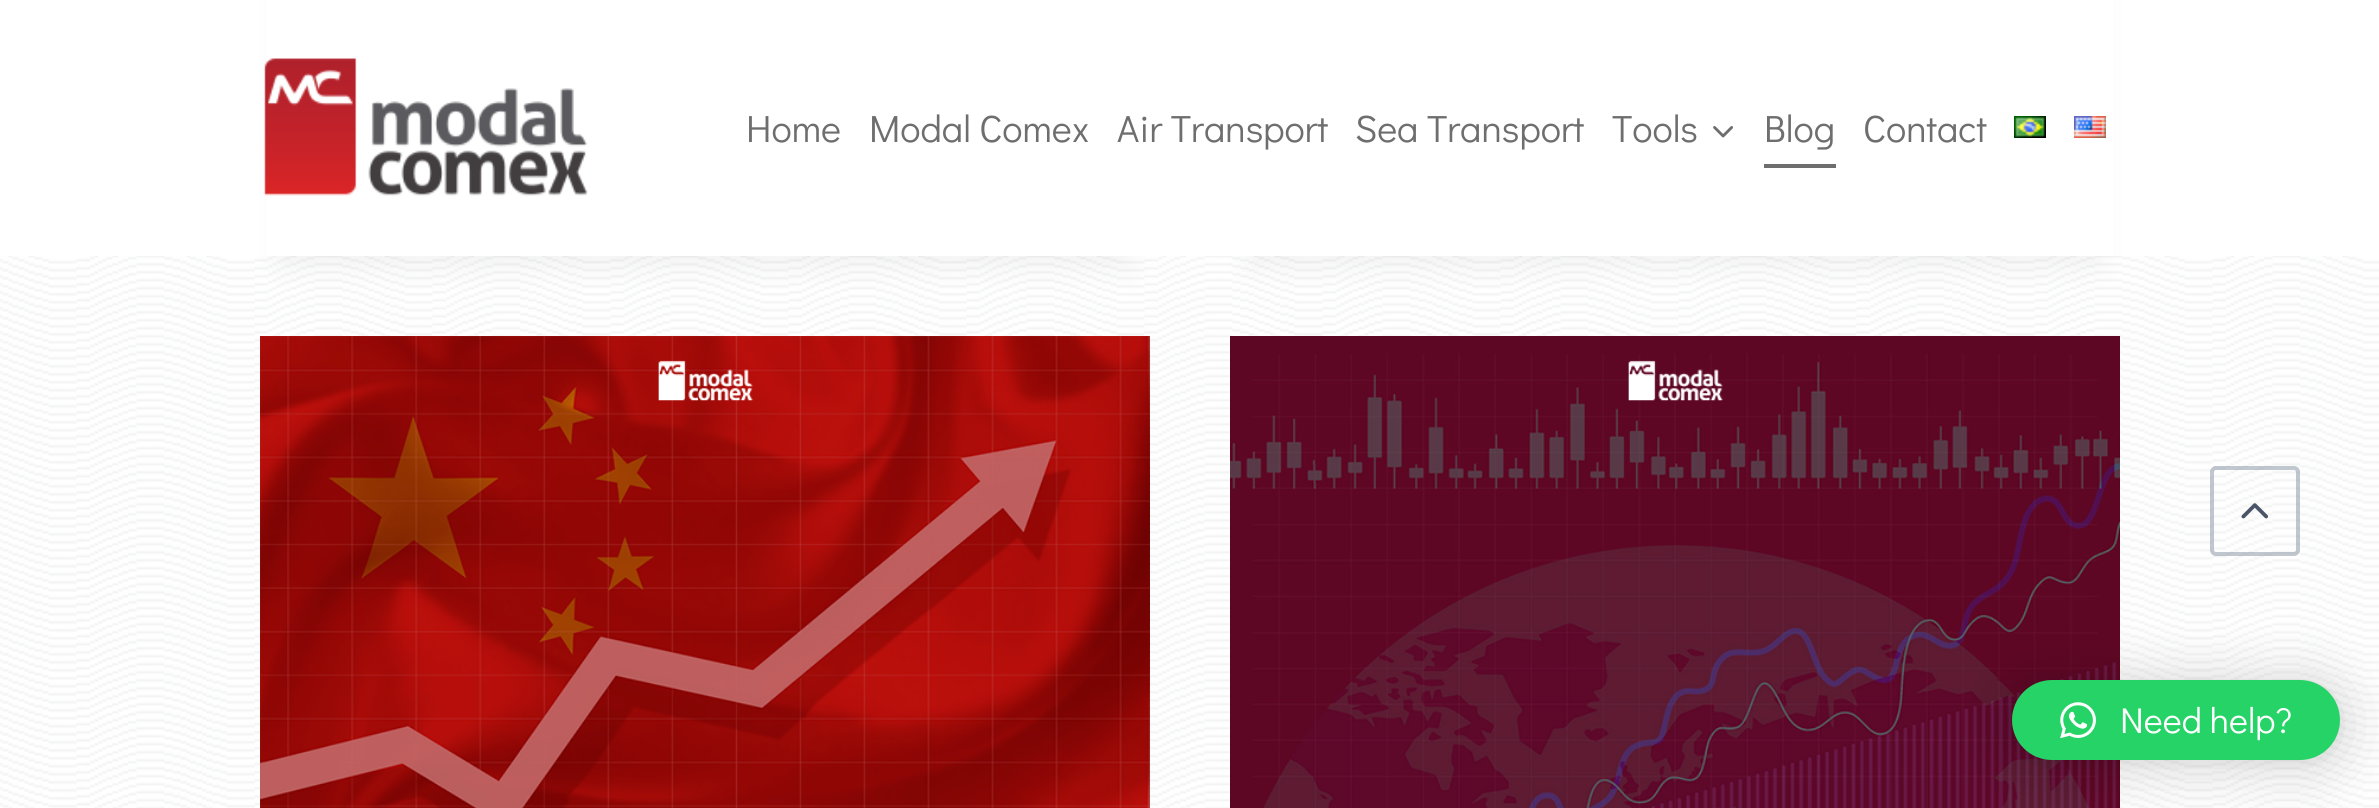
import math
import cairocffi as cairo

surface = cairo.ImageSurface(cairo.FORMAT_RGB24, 2379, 808)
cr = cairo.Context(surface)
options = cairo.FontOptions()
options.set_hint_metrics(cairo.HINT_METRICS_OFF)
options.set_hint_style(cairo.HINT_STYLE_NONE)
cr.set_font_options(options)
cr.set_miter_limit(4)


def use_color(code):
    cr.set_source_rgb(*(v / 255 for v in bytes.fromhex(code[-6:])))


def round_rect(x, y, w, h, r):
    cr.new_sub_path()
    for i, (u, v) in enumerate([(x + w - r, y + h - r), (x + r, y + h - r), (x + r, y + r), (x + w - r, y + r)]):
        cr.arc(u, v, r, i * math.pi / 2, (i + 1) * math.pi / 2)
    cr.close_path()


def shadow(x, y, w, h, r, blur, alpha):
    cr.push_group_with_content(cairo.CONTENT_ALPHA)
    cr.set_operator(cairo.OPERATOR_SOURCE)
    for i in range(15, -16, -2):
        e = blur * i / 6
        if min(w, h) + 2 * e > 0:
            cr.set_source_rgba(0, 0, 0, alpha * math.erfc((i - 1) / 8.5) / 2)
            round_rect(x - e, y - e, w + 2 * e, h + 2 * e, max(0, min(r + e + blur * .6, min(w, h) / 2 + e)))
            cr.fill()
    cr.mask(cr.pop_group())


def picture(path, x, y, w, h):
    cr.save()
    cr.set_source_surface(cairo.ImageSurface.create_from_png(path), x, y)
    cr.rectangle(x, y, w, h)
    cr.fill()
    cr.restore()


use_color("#ffffff")
cr.paint()
picture("img1.png", 0, 256, 2379, 552)
use_color("#000000")
shadow(280, -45, 850, 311, 0, 15, 0.05)
shadow(1250, -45, 850, 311, 0, 15, 0.05)
picture("img2.png", 260, 336, 890, 472)
picture("img3.png", 1230, 336, 890, 472)
use_color("#ffffff")
cr.rectangle(267, 0, 1846, 256)
cr.fill()
picture("img4.png", 264, 58, 324, 138)
cr.select_font_face("Didact Gothic")
cr.set_font_size(38)
use_color("#6f6e6e")
cr.move_to(746, 142)
cr.show_text("Home")
cr.move_to(869, 142)
cr.show_text("Modal Comex")
cr.move_to(1117, 142)
cr.show_text("Air Transport")
cr.move_to(1355, 142)
cr.show_text("Sea Transport")
cr.move_to(1612, 142)
cr.show_text("Tools")
picture("img5.png", 1713, 126, 20, 12)
cr.move_to(1764, 142)
cr.show_text("Blog")
cr.rectangle(1764, 164, 72, 4)
cr.fill()
cr.move_to(1863, 142)
cr.show_text("Contact")
picture("img6.png", 2014, 116, 32, 22)
picture("img7.png", 2074, 116, 32, 22)
round_rect(2212, 468, 86, 86, 4)
cr.set_source_rgba(0.518, 0.565, 0.62, 0.5)
cr.set_line_width(4)
cr.stroke()
picture("img8.png", 2241, 503, 28, 16)
use_color("#000000")
shadow(2012, 684, 328, 80, 40, 32, 0.16)
shadow(2012, 682, 328, 80, 40, 6, 0.06)
use_color("#25d366")
round_rect(2012, 680, 328, 80, 40)
cr.fill()
picture("img9.png", 2060, 702, 36, 37)
cr.set_font_size(36)
use_color("#ffffff")
cr.move_to(2120, 733)
cr.show_text("Need help?")
surface.write_to_png("result.png")
